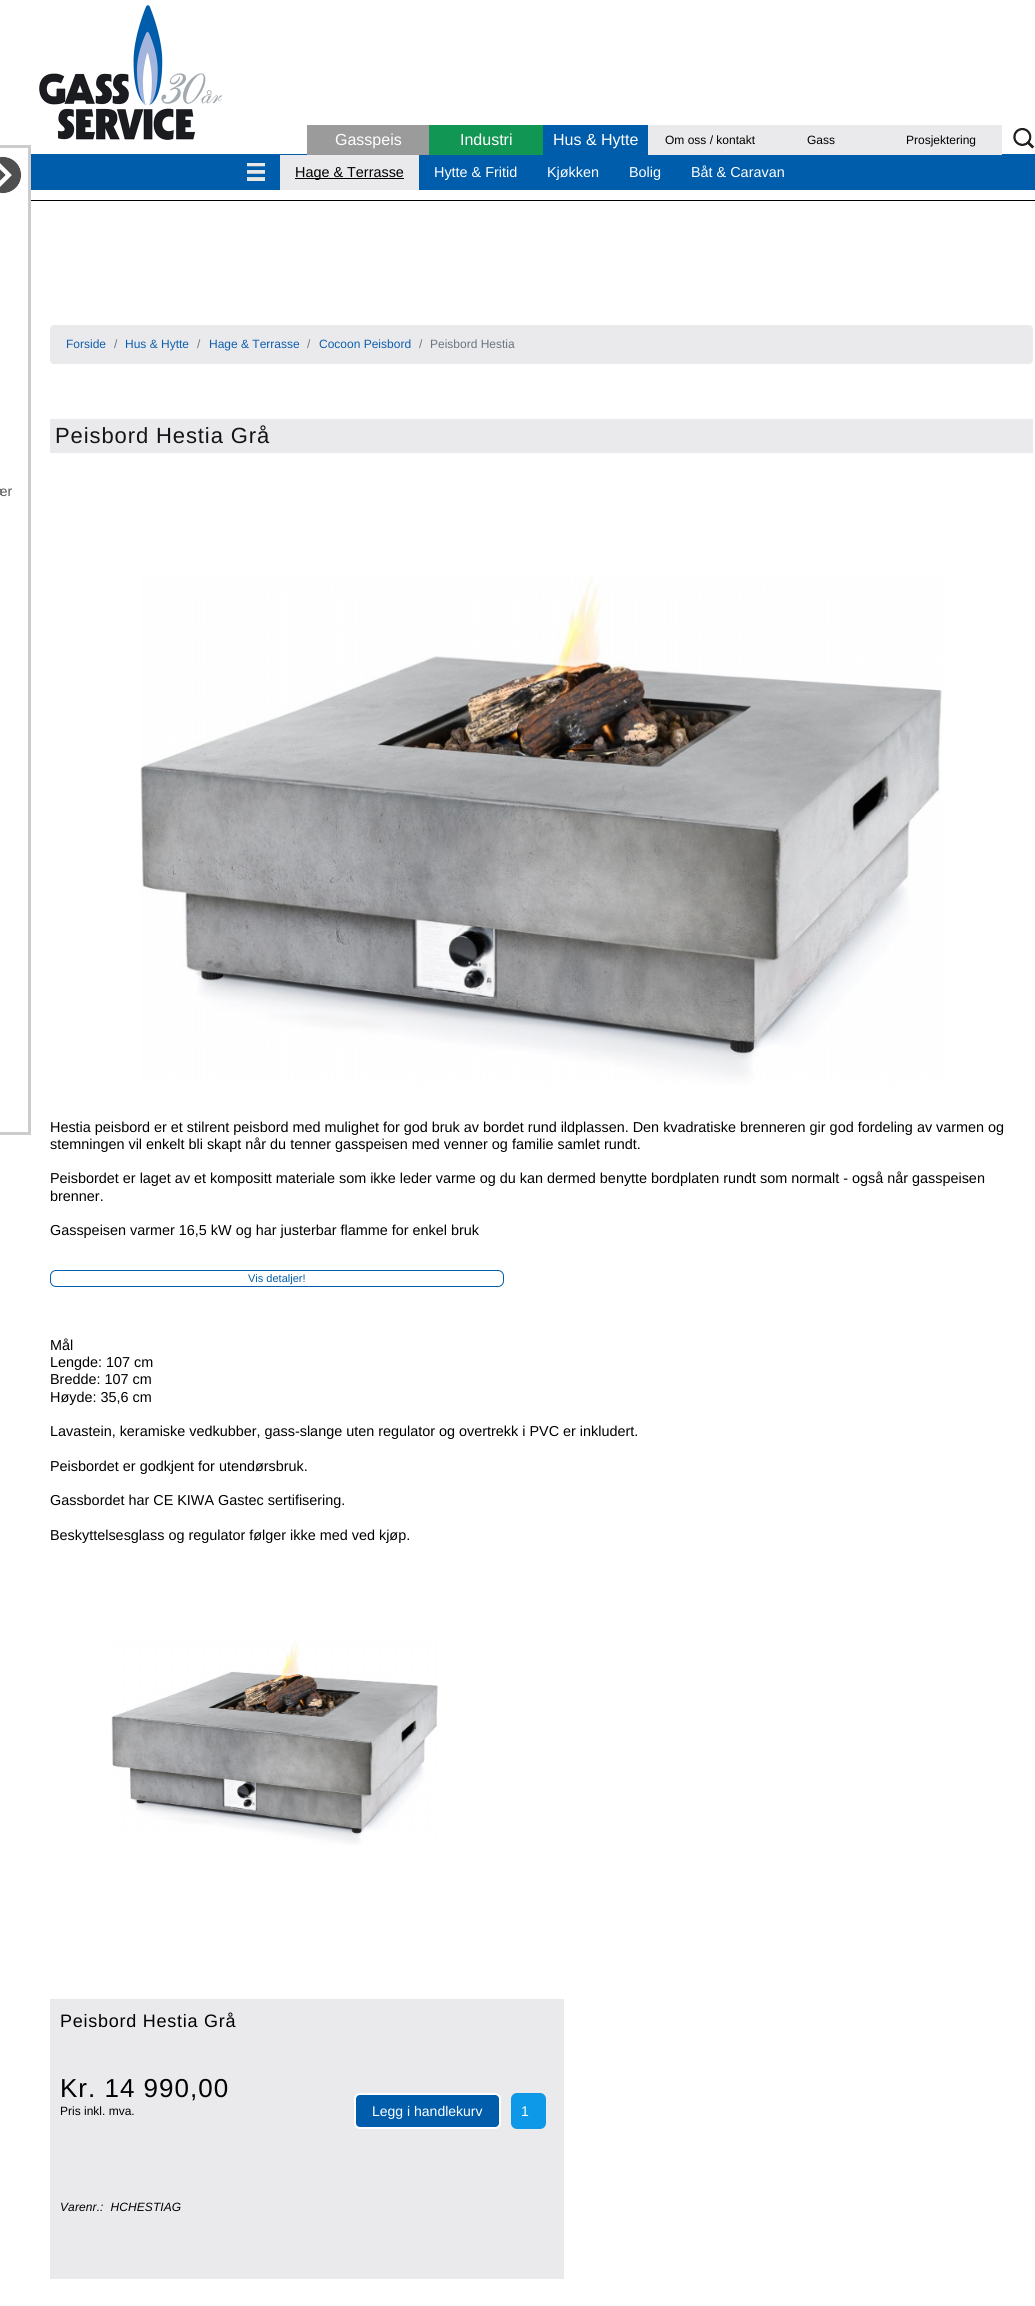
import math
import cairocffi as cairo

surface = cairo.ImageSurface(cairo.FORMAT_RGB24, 1035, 2306)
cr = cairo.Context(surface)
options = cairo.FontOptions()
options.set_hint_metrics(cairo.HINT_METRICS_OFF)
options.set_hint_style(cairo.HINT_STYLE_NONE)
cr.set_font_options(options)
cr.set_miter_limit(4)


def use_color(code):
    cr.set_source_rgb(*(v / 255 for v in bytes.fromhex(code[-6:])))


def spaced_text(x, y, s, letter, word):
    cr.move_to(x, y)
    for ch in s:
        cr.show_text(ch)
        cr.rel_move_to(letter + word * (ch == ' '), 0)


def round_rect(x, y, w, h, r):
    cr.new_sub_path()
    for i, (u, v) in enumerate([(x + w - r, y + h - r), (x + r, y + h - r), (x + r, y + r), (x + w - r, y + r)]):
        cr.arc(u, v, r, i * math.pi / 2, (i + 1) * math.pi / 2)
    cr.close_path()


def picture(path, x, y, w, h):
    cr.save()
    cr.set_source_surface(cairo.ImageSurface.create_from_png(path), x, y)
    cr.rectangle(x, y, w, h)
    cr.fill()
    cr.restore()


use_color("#ffffff")
cr.paint()
use_color("#005dab")
cr.rectangle(31, 154, 1004, 36)
cr.fill()
picture("img1.png", 39, 5, 183, 135)
use_color("#9b9b9b")
cr.rectangle(307, 125, 122, 30)
cr.fill()
cr.select_font_face("Liberation Sans")
cr.set_font_size(16)
use_color("#ffffff")
cr.move_to(335, 145)
cr.show_text("Gasspeis")
use_color("#119753")
cr.rectangle(429, 125, 114, 30)
cr.fill()
use_color("#ffffff")
cr.move_to(460, 145)
cr.show_text("Industri")
use_color("#005dab")
cr.rectangle(543, 125, 105, 29)
cr.fill()
use_color("#ffffff")
cr.move_to(553, 145)
cr.show_text("Hus & Hytte")
use_color("#eaeaec")
cr.rectangle(648, 125, 354, 30)
cr.fill()
cr.set_font_size(12)
use_color("#000000")
cr.move_to(665, 144)
cr.show_text("Om oss / kontakt")
cr.move_to(807, 144)
cr.show_text("Gass")
cr.move_to(906, 144)
cr.show_text("Prosjektering")
picture("img2.png", 1013, 128, 22, 21)
picture("img3.png", 247, 163, 18, 18)
use_color("#eaeaec")
cr.rectangle(280, 155, 139, 35)
cr.fill()
use_color("#000000")
cr.rectangle(295, 178, 109, 1)
cr.fill()
cr.set_font_size(14.4)
cr.move_to(295, 177)
cr.show_text("Hage & Terrasse")
use_color("#ffffff")
cr.move_to(434, 177)
cr.show_text("Hytte & Fritid")
cr.move_to(547, 177)
cr.show_text("Kjøkken")
cr.move_to(629, 177)
cr.show_text("Bolig")
cr.move_to(691, 177)
cr.show_text("Båt & Caravan")
use_color("#000000")
cr.rectangle(31, 200, 1004, 1)
cr.fill()
cr.rectangle(-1.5, 146.5, 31, 987)
use_color("#cccccc")
cr.set_line_width(3)
cr.stroke()
picture("img4.png", 0, 156, 22, 38)
cr.set_font_size(14)
use_color("#575656")
cr.move_to(-5, 496)
cr.show_text("ær")
use_color("#eaeaec")
round_rect(50, 325, 983, 39, 4)
cr.fill()
cr.set_font_size(12)
use_color("#0e5eae")
cr.move_to(66, 348)
cr.show_text("Forside")
use_color("#6c757d")
cr.move_to(114, 348)
cr.show_text("/")
use_color("#0e5eae")
cr.move_to(125, 348)
cr.show_text("Hus & Hytte")
use_color("#6c757d")
cr.move_to(197, 348)
cr.show_text("/")
use_color("#0e5eae")
cr.move_to(209, 348)
cr.show_text("Hage & Terrasse")
use_color("#6c757d")
cr.move_to(307, 348)
cr.show_text("/")
use_color("#0e5eae")
cr.move_to(319, 348)
cr.show_text("Cocoon Peisbord")
use_color("#6c757d")
cr.move_to(419, 348)
cr.show_text("/")
cr.move_to(430, 348)
cr.show_text("Peisbord Hestia")
use_color("#eaeaec")
cr.rectangle(50, 419, 983, 34)
cr.fill()
cr.set_font_size(22)
use_color("#141414")
spaced_text(55, 443, "Peisbord Hestia Grå", 0.9, 0)
picture("img5.png", 140, 576, 802, 509)
cr.set_font_size(14.4)
use_color("#000000")
cr.move_to(50, 1132)
cr.show_text("Hestia peisbord er et stilrent peisbord med mulighet for god bruk av bordet rund ildplassen. Den kvadratiske brenneren gir god fordeling av varmen og")
cr.move_to(50, 1149)
cr.show_text("stemningen vil enkelt bli skapt når du tenner gasspeisen med venner og familie samlet rundt.")
cr.move_to(50, 1183)
cr.show_text("Peisbordet er laget av et kompositt materiale som ikke leder varme og du kan dermed benytte bordplaten rundt som normalt - også når gasspeisen")
cr.move_to(50, 1201)
cr.show_text("brenner.")
cr.move_to(50, 1235)
cr.show_text("Gasspeisen varmer 16,5 kW og har justerbar flamme for enkel bruk")
round_rect(50.5, 1270.5, 453, 16, 5.5)
use_color("#005dab")
cr.set_line_width(1)
cr.stroke()
cr.set_font_size(11)
cr.move_to(248, 1282)
cr.show_text("Vis detaljer!")
cr.set_font_size(14.4)
use_color("#000000")
cr.move_to(50, 1350)
cr.show_text("Mål")
cr.move_to(50, 1367)
cr.show_text("Lengde: 107 cm")
cr.move_to(50, 1384)
cr.show_text("Bredde: 107 cm")
cr.move_to(50, 1402)
cr.show_text("Høyde: 35,6 cm")
cr.move_to(50, 1436)
cr.show_text("Lavastein, keramiske vedkubber, gass-slange uten regulator og overtrekk i PVC er inkludert.")
cr.move_to(50, 1471)
cr.show_text("Peisbordet er godkjent for utendørsbruk.")
cr.move_to(50, 1505)
cr.show_text("Gassbordet har CE KIWA Gastec sertifisering.")
cr.move_to(50, 1540)
cr.show_text("Beskyttelsesglass og regulator følger ikke med ved kjøp.")
picture("img6.png", 111, 1639, 327, 206)
use_color("#eaeaec")
cr.rectangle(50, 1999, 514, 280)
cr.fill()
cr.set_font_size(18)
use_color("#000000")
spaced_text(60, 2027, "Peisbord Hestia Grå", 0.75, 0)
cr.set_font_size(26)
spaced_text(60, 2097, "Kr. 14 990,00", 1, 0)
cr.set_font_size(12)
cr.move_to(60, 2115)
cr.show_text("Pris inkl. mva.")
use_color("#005dab")
round_rect(355, 2094, 145, 34, 5)
cr.fill_preserve()
use_color("#ffffff")
cr.set_line_width(2)
cr.stroke()
cr.set_font_size(14)
cr.move_to(372, 2116)
cr.show_text("Legg i handlekurv")
use_color("#0d98e8")
round_rect(511, 2093, 35, 36, 6)
cr.fill()
use_color("#ffffff")
cr.move_to(521, 2116)
cr.show_text("1")
cr.select_font_face("Liberation Sans", cairo.FONT_SLANT_ITALIC)
cr.set_font_size(12)
use_color("#000000")
spaced_text(60, 2211, "Varenr.:  HCHESTIAG", 0.1, 0)
surface.write_to_png("result.png")
